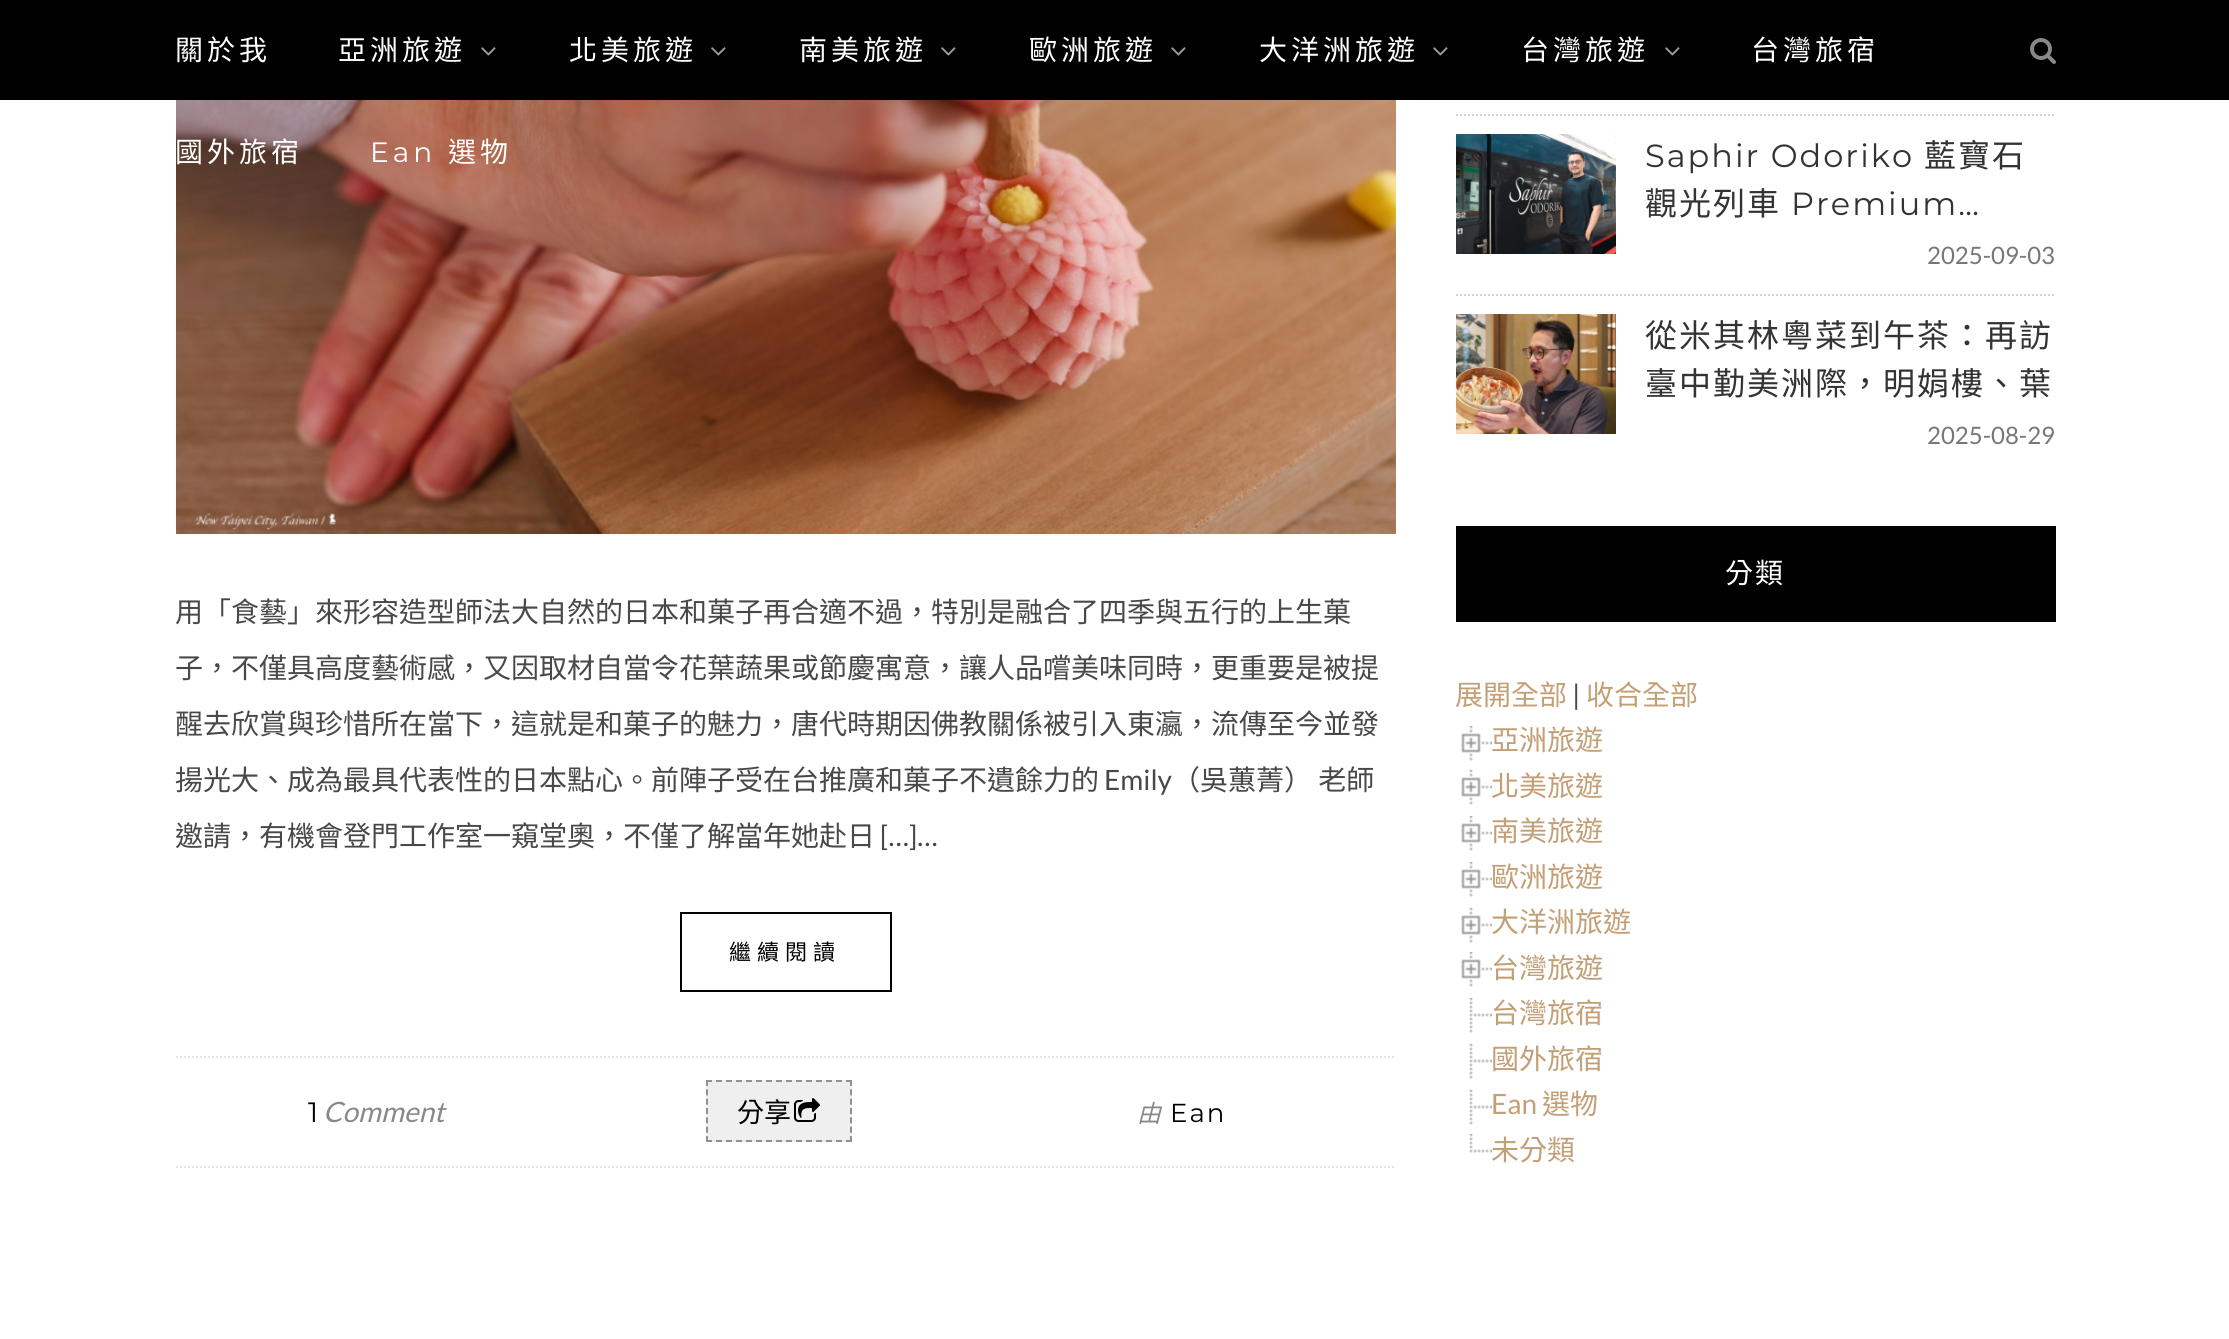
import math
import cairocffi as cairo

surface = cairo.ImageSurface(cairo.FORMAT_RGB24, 2229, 1339)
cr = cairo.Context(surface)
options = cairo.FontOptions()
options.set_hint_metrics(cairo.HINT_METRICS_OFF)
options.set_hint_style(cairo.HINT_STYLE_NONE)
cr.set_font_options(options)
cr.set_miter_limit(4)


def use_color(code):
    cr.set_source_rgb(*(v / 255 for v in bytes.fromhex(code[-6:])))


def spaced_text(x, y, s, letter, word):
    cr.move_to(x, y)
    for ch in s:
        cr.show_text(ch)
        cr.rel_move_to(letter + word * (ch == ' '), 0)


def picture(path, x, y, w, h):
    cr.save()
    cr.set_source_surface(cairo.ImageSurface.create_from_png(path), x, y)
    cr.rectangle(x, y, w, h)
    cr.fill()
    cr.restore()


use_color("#ffffff")
cr.paint()
use_color("#000000")
cr.rectangle(0, 0, 2229, 100)
cr.fill()
cr.select_font_face("Noto Sans CJK TC")
cr.set_font_size(28)
use_color("#ffffff")
spaced_text(175, 60, "關於我", 4, 0)
spaced_text(338, 60, "亞洲旅遊", 4, 0)
picture("img1.png", 481, 47, 15, 9)
spaced_text(569, 60, "北美旅遊", 4, 0)
picture("img1.png", 711, 47, 15, 9)
spaced_text(799, 60, "南美旅遊", 4, 0)
picture("img1.png", 941, 47, 15, 9)
spaced_text(1029, 60, "歐洲旅遊", 4, 0)
picture("img1.png", 1171, 47, 15, 9)
spaced_text(1259, 60, "大洋洲旅遊", 4, 0)
picture("img1.png", 1433, 47, 15, 9)
spaced_text(1521, 60, "台灣旅遊", 4, 0)
picture("img1.png", 1665, 47, 15, 9)
spaced_text(1751, 60, "台灣旅宿", 4, 0)
picture("img3.png", 176, 100, 1220, 434)
spaced_text(175, 162, "國外旅宿", 4, 0)
cr.select_font_face("Montserrat")
spaced_text(370, 162, "Ean", 4, 0)
cr.select_font_face("Noto Sans CJK TC")
spaced_text(448, 162, "選物", 4, 0)
picture("img2.png", 2030, 38, 26, 26)
use_color("#484848")
cr.move_to(175, 622)
cr.show_text("用「食藝」來形容造型師法大自然的日本和菓子再合適不過，特別是融合了四季與五行的上生菓")
cr.move_to(175, 678)
cr.show_text("子，不僅具高度藝術感，又因取材自當令花葉蔬果或節慶寓意，讓人品嚐美味同時，更重要是被提")
cr.move_to(175, 734)
cr.show_text("醒去欣賞與珍惜所在當下，這就是和菓子的魅力，唐代時期因佛教關係被引入東瀛，流傳至今並發")
cr.move_to(175, 790)
cr.show_text("揚光大、成為最具代表性的日本點心。前陣子受在台推廣和菓子不遺餘力的")
cr.select_font_face("Lato")
cr.move_to(1104, 790)
cr.show_text("Emily")
cr.select_font_face("Noto Sans CJK TC")
cr.move_to(1172, 790)
cr.show_text("（吳蕙菁） 老師")
cr.move_to(175, 846)
cr.show_text("邀請，有機會登門工作室一窺堂奧，不僅了解當年她赴日")
cr.select_font_face("Lato")
cr.move_to(880, 846)
cr.show_text("[…]…")
cr.rectangle(681, 913, 210, 78)
use_color("#000000")
cr.stroke()
cr.select_font_face("Noto Sans CJK TC")
cr.set_font_size(22)
spaced_text(729, 960, "繼續閱讀", 6, 0)
cr.new_path()
cr.move_to(176, 1057)
cr.line_to(1396, 1057)
use_color("#e5e5e5")
cr.set_dash([2, 2])
cr.stroke()
cr.new_path()
cr.move_to(176, 1167)
cr.line_to(1396, 1167)
cr.stroke()
cr.select_font_face("Montserrat")
cr.set_font_size(28)
use_color("#000000")
cr.move_to(308, 1122)
cr.show_text("1")
cr.select_font_face("Lato", cairo.FONT_SLANT_ITALIC)
use_color("#888888")
cr.move_to(323, 1122)
cr.show_text("Comment")
use_color("#efefef")
cr.rectangle(706, 1080, 146, 62)
cr.fill()
cr.new_path()
cr.move_to(706, 1081)
cr.line_to(852, 1081)
use_color("#909090")
cr.set_dash([6, 4])
cr.stroke()
cr.new_path()
cr.move_to(851, 1080)
cr.line_to(851, 1142)
cr.set_dash([6, 3.34])
cr.stroke()
cr.new_path()
cr.move_to(706, 1141)
cr.line_to(852, 1141)
cr.set_dash([6, 4])
cr.stroke()
cr.new_path()
cr.move_to(707, 1080)
cr.line_to(707, 1142)
cr.set_dash([6, 3.34])
cr.stroke()
cr.select_font_face("Noto Sans CJK TC")
cr.set_font_size(27)
use_color("#000000")
cr.move_to(737, 1122)
cr.show_text("分享")
picture("img4.png", 794, 1098, 26, 24)
cr.select_font_face("Noto Sans CJK TC", cairo.FONT_SLANT_ITALIC)
cr.set_font_size(24)
use_color("#888888")
cr.move_to(1137, 1122)
cr.show_text("由")
cr.select_font_face("Montserrat")
cr.set_font_size(26)
use_color("#000000")
spaced_text(1170, 1122, "Ean", 2, 0)
cr.new_path()
cr.move_to(1456, 115)
cr.line_to(2056, 115)
use_color("#d5d5d5")
cr.set_dash([2, 2])
cr.stroke()
cr.new_path()
cr.move_to(1456, 295)
cr.line_to(2056, 295)
cr.stroke()
picture("img5.png", 1456, 134, 160, 120)
cr.set_font_size(32)
use_color("#333333")
spaced_text(1645, 167, "Saphir Odoriko", 2, 0)
cr.select_font_face("Noto Sans CJK TC")
spaced_text(1924, 167, "藍寶石", 2, 0)
spaced_text(1645, 215, "觀光列車", 2, 0)
cr.select_font_face("Montserrat")
spaced_text(1791, 215, "Premium…", 2, 0)
cr.select_font_face("Lato")
cr.set_font_size(24)
use_color("#777777")
cr.move_to(1927, 264)
cr.show_text("2025-09-03")
picture("img6.png", 1456, 314, 160, 120)
cr.select_font_face("Noto Sans CJK TC")
cr.set_font_size(32)
use_color("#333333")
spaced_text(1645, 347, "從米其林粵菜到午茶：再訪", 2, 0)
spaced_text(1645, 395, "臺中勤美洲際，明娟樓、葉", 2, 0)
cr.select_font_face("Lato")
cr.set_font_size(24)
use_color("#777777")
cr.move_to(1927, 444)
cr.show_text("2025-08-29")
use_color("#000000")
cr.rectangle(1456, 526, 600, 96)
cr.fill()
cr.select_font_face("Noto Sans CJK TC")
cr.set_font_size(28)
use_color("#ffffff")
spaced_text(1725, 583, "分類", 2, 0)
use_color("#c39f76")
cr.move_to(1455, 705)
cr.show_text("展開全部")
cr.select_font_face("Lato")
use_color("#484848")
cr.move_to(1572, 705)
cr.show_text("|")
cr.select_font_face("Noto Sans CJK TC")
use_color("#c39f76")
cr.move_to(1586, 705)
cr.show_text("收合全部")
picture("img7.png", 1461, 726, 31, 35)
cr.move_to(1491, 750)
cr.show_text("亞洲旅遊")
picture("img7.png", 1461, 770, 31, 35)
cr.move_to(1491, 796)
cr.show_text("北美旅遊")
picture("img7.png", 1461, 816, 31, 35)
cr.move_to(1491, 841)
cr.show_text("南美旅遊")
picture("img7.png", 1461, 862, 31, 35)
cr.move_to(1491, 887)
cr.show_text("歐洲旅遊")
picture("img7.png", 1461, 908, 31, 35)
cr.move_to(1491, 932)
cr.show_text("大洋洲旅遊")
picture("img7.png", 1461, 952, 31, 35)
cr.move_to(1491, 978)
cr.show_text("台灣旅遊")
picture("img8.png", 1469, 998, 23, 35)
cr.move_to(1491, 1023)
cr.show_text("台灣旅宿")
picture("img8.png", 1469, 1044, 23, 35)
cr.move_to(1491, 1069)
cr.show_text("國外旅宿")
picture("img8.png", 1469, 1090, 23, 35)
cr.select_font_face("Lato")
cr.move_to(1491, 1114)
cr.show_text("Ean")
cr.select_font_face("Noto Sans CJK TC")
cr.move_to(1542, 1114)
cr.show_text("選物")
picture("img9.png", 1469, 1134, 23, 19)
cr.move_to(1491, 1160)
cr.show_text("未分類")
surface.write_to_png("result.png")
